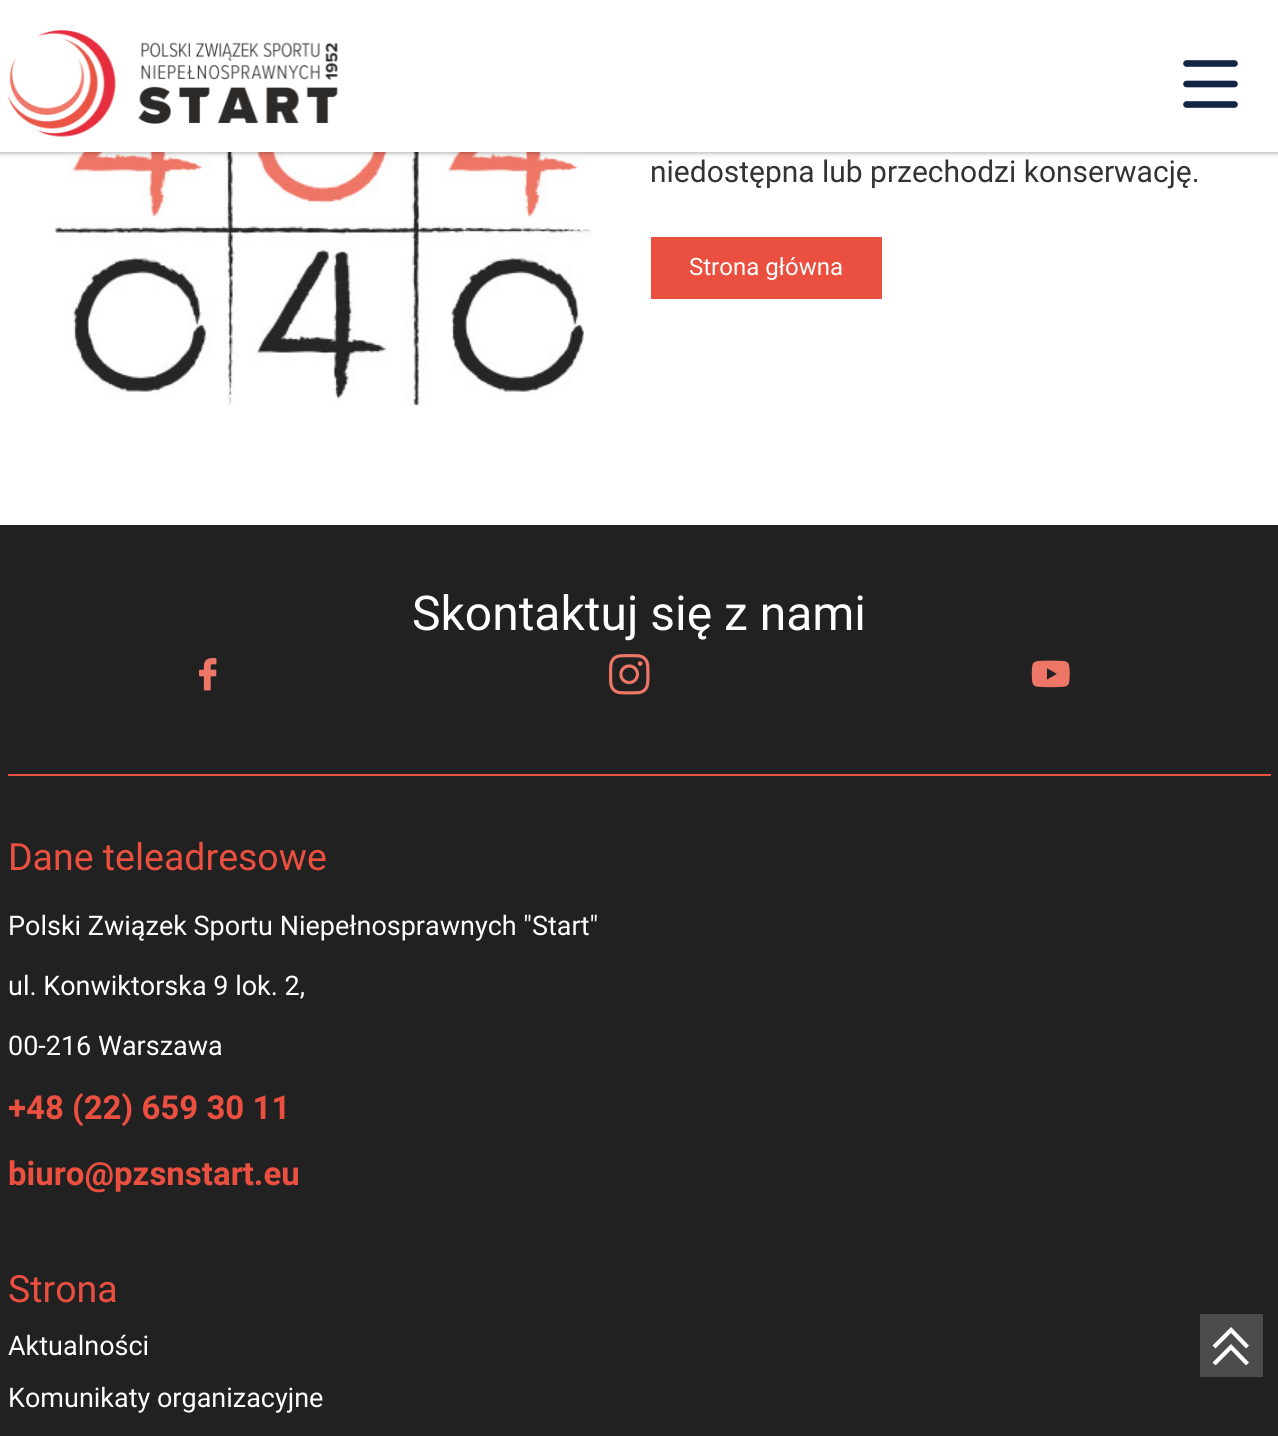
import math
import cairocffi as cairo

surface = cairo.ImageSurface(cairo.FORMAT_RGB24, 1278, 1436)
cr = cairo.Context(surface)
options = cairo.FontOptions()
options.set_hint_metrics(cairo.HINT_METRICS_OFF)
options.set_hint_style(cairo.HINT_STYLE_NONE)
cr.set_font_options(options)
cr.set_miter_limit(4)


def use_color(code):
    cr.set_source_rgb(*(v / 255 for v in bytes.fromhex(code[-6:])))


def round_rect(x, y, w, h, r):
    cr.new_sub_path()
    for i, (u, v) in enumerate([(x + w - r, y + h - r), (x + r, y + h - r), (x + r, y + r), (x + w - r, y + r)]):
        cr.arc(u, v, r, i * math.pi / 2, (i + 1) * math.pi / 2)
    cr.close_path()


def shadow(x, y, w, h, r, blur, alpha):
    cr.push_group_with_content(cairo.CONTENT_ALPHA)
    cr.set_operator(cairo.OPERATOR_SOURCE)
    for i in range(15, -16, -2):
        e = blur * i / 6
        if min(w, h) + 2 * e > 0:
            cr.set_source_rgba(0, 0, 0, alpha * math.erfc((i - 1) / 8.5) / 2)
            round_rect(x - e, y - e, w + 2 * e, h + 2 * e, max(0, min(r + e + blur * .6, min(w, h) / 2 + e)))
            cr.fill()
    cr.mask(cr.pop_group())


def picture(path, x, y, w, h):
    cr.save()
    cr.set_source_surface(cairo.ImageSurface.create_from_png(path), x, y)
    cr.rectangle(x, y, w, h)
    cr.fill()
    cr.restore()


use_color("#ffffff")
cr.paint()
picture("img2.png", 55, 152, 536, 253)
use_color("#000000")
shadow(-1, -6, 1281, 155, 0, 4, 1)
use_color("#ffffff")
cr.rectangle(0, 0, 1278, 152)
cr.fill()
picture("img1.png", 7, 30, 331, 107)
cr.new_path()
cr.move_to(1186.5, 63.5)
cr.line_to(1234.5, 63.5)
cr.move_to(1186.5, 84)
cr.line_to(1234.5, 84)
cr.move_to(1234.5, 104.5)
cr.line_to(1186.5, 104.5)
use_color("#142444")
cr.set_line_width(6.6)
cr.set_line_cap(cairo.LINE_CAP_ROUND)
cr.stroke()
cr.select_font_face("Roboto")
cr.set_font_size(30)
use_color("#333333")
cr.move_to(650, 182)
cr.show_text("niedostępna lub przechodzi konserwację.")
use_color("#eb4f3f")
cr.rectangle(651, 237, 231, 62)
cr.fill()
cr.set_font_size(24)
use_color("#ffffff")
cr.move_to(689, 275)
cr.show_text("Strona główna")
use_color("#212121")
cr.rectangle(0, 525, 1278, 911)
cr.fill()
use_color("#4c4c4c")
cr.rectangle(1200, 1314, 63, 63)
cr.fill()
cr.new_path()
cr.move_to(1214, 1347)
cr.line_to(1231, 1330)
cr.line_to(1247.5, 1347)
use_color("#ffffff")
cr.set_line_width(4.2)
cr.set_line_cap(cairo.LINE_CAP_BUTT)
cr.stroke()
cr.save()
cr.rectangle(1212, 1326, 39, 39)
cr.clip()
cr.new_path()
cr.move_to(1214, 1364)
cr.line_to(1231, 1347)
cr.line_to(1247.5, 1364)
cr.stroke()
cr.restore()
use_color("#eb4f3f")
cr.rectangle(8, 774, 1263, 2)
cr.fill()
cr.set_font_size(48)
use_color("#ffffff")
cr.move_to(412, 630)
cr.show_text("Skontaktuj się z nami")
picture("img3.png", 199, 658, 18, 33)
picture("img4.png", 609, 654, 41, 41)
picture("img5.png", 1031, 660, 39, 28)
cr.set_font_size(37.5)
use_color("#eb4f3f")
cr.move_to(8, 870)
cr.show_text("Dane teleadresowe")
cr.set_font_size(27)
use_color("#ffffff")
cr.move_to(8, 935)
cr.show_text("Polski Związek Sportu Niepełnosprawnych \"Start\"")
cr.move_to(8, 995)
cr.show_text("ul. Konwiktorska 9 lok. 2,")
cr.move_to(8, 1055)
cr.show_text("00-216 Warszawa")
cr.select_font_face("Roboto", cairo.FONT_SLANT_NORMAL, cairo.FONT_WEIGHT_BOLD)
cr.set_font_size(33)
use_color("#eb4f3f")
cr.move_to(8, 1119)
cr.show_text("+48 (22) 659 30 11")
cr.move_to(8, 1185)
cr.show_text("biuro@pzsnstart.eu")
cr.select_font_face("Roboto")
cr.set_font_size(37.5)
cr.move_to(8, 1302)
cr.show_text("Strona")
cr.set_font_size(27)
use_color("#ffffff")
cr.move_to(8, 1355)
cr.show_text("Aktualności")
cr.move_to(8, 1407)
cr.show_text("Komunikaty organizacyjne")
surface.write_to_png("result.png")
